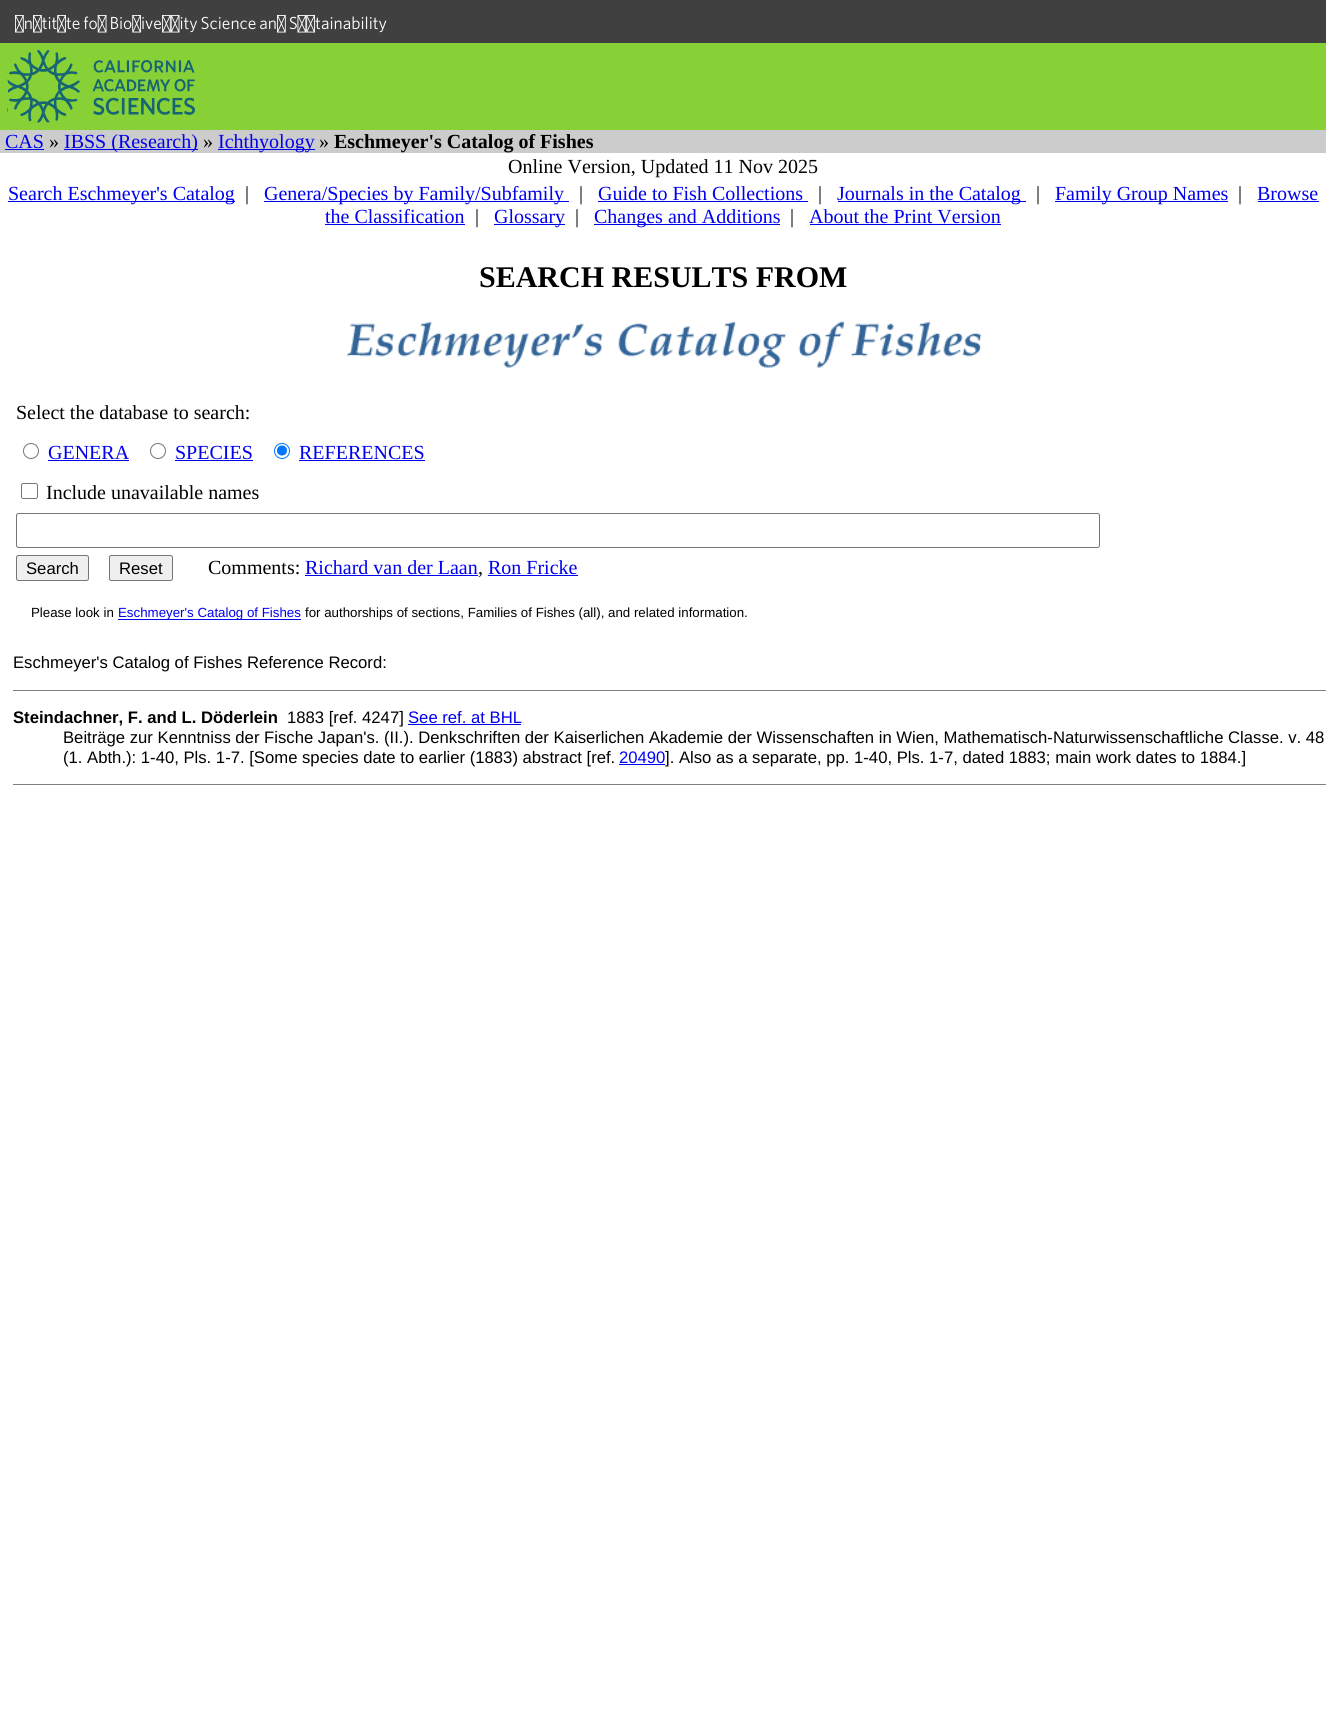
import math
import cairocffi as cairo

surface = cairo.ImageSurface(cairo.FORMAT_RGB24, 1326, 1736)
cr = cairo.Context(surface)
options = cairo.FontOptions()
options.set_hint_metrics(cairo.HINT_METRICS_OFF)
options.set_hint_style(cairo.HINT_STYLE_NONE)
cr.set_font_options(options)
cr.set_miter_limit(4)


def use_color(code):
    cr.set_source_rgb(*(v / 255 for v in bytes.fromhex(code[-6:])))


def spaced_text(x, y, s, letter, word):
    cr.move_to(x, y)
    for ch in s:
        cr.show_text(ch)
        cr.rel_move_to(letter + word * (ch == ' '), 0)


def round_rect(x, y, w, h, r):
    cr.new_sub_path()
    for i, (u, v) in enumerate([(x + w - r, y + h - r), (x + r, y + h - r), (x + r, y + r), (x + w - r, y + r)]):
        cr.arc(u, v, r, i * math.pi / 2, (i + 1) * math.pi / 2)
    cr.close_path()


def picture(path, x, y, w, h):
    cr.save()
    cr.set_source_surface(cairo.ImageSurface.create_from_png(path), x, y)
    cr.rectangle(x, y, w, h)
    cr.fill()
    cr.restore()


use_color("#ffffff")
cr.paint()
use_color("#404040")
cr.rectangle(0, 0, 1326, 43)
cr.fill()
cr.select_font_face("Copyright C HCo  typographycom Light")
cr.set_font_size(17.5)
use_color("#ffffff")
spaced_text(15, 29, "Institute for Biodiversity Science and Sustainability", 0, -1)
use_color("#87d036")
cr.rectangle(0, 43, 1326, 87)
cr.fill()
picture("img1.png", 7, 50, 188, 73)
use_color("#cccccc")
cr.rectangle(0, 130, 1326, 23)
cr.fill()
cr.select_font_face("Liberation Serif")
cr.set_font_size(20)
use_color("#0000ee")
cr.move_to(5, 148)
cr.show_text("CAS")
cr.rectangle(5, 149, 39, 1)
cr.fill()
use_color("#000000")
cr.move_to(49, 148)
cr.show_text("»")
use_color("#0000ee")
cr.rectangle(64, 149, 134, 1)
cr.fill()
cr.move_to(64, 148)
cr.show_text("IBSS (Research)")
use_color("#000000")
cr.move_to(203, 148)
cr.show_text("»")
use_color("#0000ee")
cr.rectangle(218, 149, 97, 1)
cr.fill()
cr.move_to(218, 148)
cr.show_text("Ichthyology")
use_color("#000000")
cr.move_to(319, 148)
cr.show_text("»")
cr.select_font_face("Liberation Serif", cairo.FONT_SLANT_NORMAL, cairo.FONT_WEIGHT_BOLD)
cr.move_to(334, 148)
cr.show_text("Eschmeyer's Catalog of Fishes")
cr.select_font_face("Liberation Serif")
cr.move_to(508, 173)
cr.show_text("Online Version, Updated 11 Nov 2025")
use_color("#0000ee")
cr.rectangle(8, 201, 227, 1)
cr.fill()
cr.move_to(8, 200)
cr.show_text("Search Eschmeyer's Catalog")
use_color("#000000")
cr.move_to(245, 200)
cr.show_text("|")
use_color("#0000ee")
cr.rectangle(264, 201, 305, 1)
cr.fill()
cr.move_to(264, 200)
cr.show_text("Genera/Species by Family/Subfamily")
use_color("#000000")
cr.move_to(579, 200)
cr.show_text("|")
use_color("#0000ee")
cr.move_to(598, 200)
cr.show_text("Guide to Fish Collections")
cr.rectangle(598, 201, 210, 1)
cr.fill()
use_color("#000000")
cr.move_to(818, 200)
cr.show_text("|")
use_color("#0000ee")
cr.rectangle(838, 201, 188, 1)
cr.fill()
cr.move_to(837, 200)
cr.show_text("Journals in the Catalog")
use_color("#000000")
cr.move_to(1036, 200)
cr.show_text("|")
use_color("#0000ee")
cr.rectangle(1055, 201, 173, 1)
cr.fill()
cr.move_to(1055, 200)
cr.show_text("Family Group Names")
use_color("#000000")
cr.move_to(1238, 200)
cr.show_text("|")
use_color("#0000ee")
cr.move_to(1257, 200)
cr.show_text("Browse")
cr.rectangle(1258, 201, 61, 1)
cr.fill()
cr.move_to(325, 223)
cr.show_text("the Classification")
cr.rectangle(325, 224, 140, 1)
cr.fill()
use_color("#000000")
cr.move_to(475, 223)
cr.show_text("|")
use_color("#0000ee")
cr.rectangle(494, 224, 71, 1)
cr.fill()
cr.move_to(494, 223)
cr.show_text("Glossary")
use_color("#000000")
cr.move_to(575, 223)
cr.show_text("|")
use_color("#0000ee")
cr.rectangle(594, 224, 186, 1)
cr.fill()
cr.move_to(594, 223)
cr.show_text("Changes and Additions")
use_color("#000000")
cr.move_to(790, 223)
cr.show_text("|")
use_color("#0000ee")
cr.move_to(809, 223)
cr.show_text("About the Print Version")
cr.rectangle(810, 224, 191, 1)
cr.fill()
cr.select_font_face("Liberation Serif", cairo.FONT_SLANT_NORMAL, cairo.FONT_WEIGHT_BOLD)
cr.set_font_size(30)
use_color("#000000")
cr.move_to(479, 287)
cr.show_text("SEARCH RESULTS FROM")
picture("img2.png", 347, 321, 635, 47)
cr.select_font_face("Liberation Serif")
cr.set_font_size(20)
cr.move_to(16, 419)
cr.show_text("Select the database to search:")
cr.new_path()
cr.arc(31, 451, 7.5, 0, 2 * math.pi)
use_color("#767676")
cr.set_line_width(1)
cr.stroke()
use_color("#0000ee")
cr.move_to(48, 459)
cr.show_text("GENERA")
cr.rectangle(48, 460, 81, 1)
cr.fill()
cr.arc(158, 451, 7.5, 0, 2 * math.pi)
use_color("#767676")
cr.stroke()
use_color("#0000ee")
cr.move_to(175, 459)
cr.show_text("SPECIES")
cr.rectangle(175, 460, 78, 1)
cr.fill()
cr.arc(282, 451, 7.5, 0, 2 * math.pi)
use_color("#0075ff")
cr.stroke()
cr.arc(282, 450.5, 5, 0, 2 * math.pi)
cr.fill()
use_color("#0000ee")
cr.move_to(299, 459)
cr.show_text("REFERENCES")
cr.rectangle(299, 460, 126, 1)
cr.fill()
round_rect(21.5, 483.5, 16, 15, 2)
use_color("#767676")
cr.stroke()
use_color("#000000")
cr.move_to(46, 499)
cr.show_text("Include unavailable names")
round_rect(16.5, 513.5, 1083, 34, 2)
use_color("#767676")
cr.stroke()
use_color("#efefef")
round_rect(16.5, 555.5, 72, 25, 2)
cr.fill_preserve()
use_color("#767676")
cr.stroke()
cr.select_font_face("Liberation Sans")
cr.set_font_size(16.67)
use_color("#000000")
cr.move_to(26, 574)
cr.show_text("Search")
use_color("#efefef")
round_rect(109.5, 555.5, 63, 25, 2)
cr.fill_preserve()
use_color("#767676")
cr.stroke()
use_color("#000000")
cr.move_to(119, 574)
cr.show_text("Reset")
cr.select_font_face("Liberation Serif")
cr.set_font_size(20)
cr.move_to(208, 574)
cr.show_text("Comments:")
use_color("#0000ee")
cr.move_to(305, 574)
cr.show_text("Richard van der Laan")
cr.rectangle(305, 575, 173, 1)
cr.fill()
use_color("#000000")
cr.move_to(478, 574)
cr.show_text(",")
use_color("#0000ee")
cr.move_to(488, 574)
cr.show_text("Ron Fricke")
cr.rectangle(488, 575, 90, 1)
cr.fill()
cr.select_font_face("Liberation Sans")
cr.set_font_size(13.3)
use_color("#000000")
cr.move_to(31, 617)
cr.show_text("Please look in")
use_color("#0000ee")
cr.rectangle(118, 619, 183, 1)
cr.fill()
cr.move_to(118, 617)
cr.show_text("Eschmeyer's Catalog of Fishes")
use_color("#000000")
cr.move_to(305, 617)
cr.show_text("for authorships of sections, Families of Fishes (all), and related information.")
cr.set_font_size(16.67)
cr.move_to(13, 668)
cr.show_text("Eschmeyer's Catalog of Fishes Reference Record:")
use_color("#808080")
cr.rectangle(13, 690, 1313, 1)
cr.fill()
cr.select_font_face("Liberation Sans", cairo.FONT_SLANT_NORMAL, cairo.FONT_WEIGHT_BOLD)
use_color("#000000")
cr.move_to(13, 723)
cr.show_text("Steindachner, F. and L. Döderlein")
cr.select_font_face("Liberation Sans")
cr.move_to(287, 723)
cr.show_text("1883 [ref. 4247]")
use_color("#0000ee")
cr.move_to(408, 723)
cr.show_text("See ref. at BHL")
cr.rectangle(408, 724, 113, 1)
cr.fill()
use_color("#000000")
cr.move_to(63, 743)
cr.show_text("Beiträge zur Kenntniss der Fische Japan's. (II.). Denkschriften der Kaiserlichen Akademie der Wissenschaften in Wien, Mathematisch-Naturwissenschaftliche Classe. v. 48")
cr.move_to(63, 763)
cr.show_text("(1. Abth.): 1-40, Pls. 1-7. [Some species date to earlier (1883) abstract [ref.")
use_color("#0000ff")
cr.move_to(619, 763)
cr.show_text("20490")
cr.rectangle(619, 764, 46, 1)
cr.fill()
use_color("#000000")
cr.move_to(665, 763)
cr.show_text("]. Also as a separate, pp. 1-40, Pls. 1-7, dated 1883; main work dates to 1884.]")
use_color("#808080")
cr.rectangle(13, 784, 1313, 1)
cr.fill()
surface.write_to_png("result.png")
